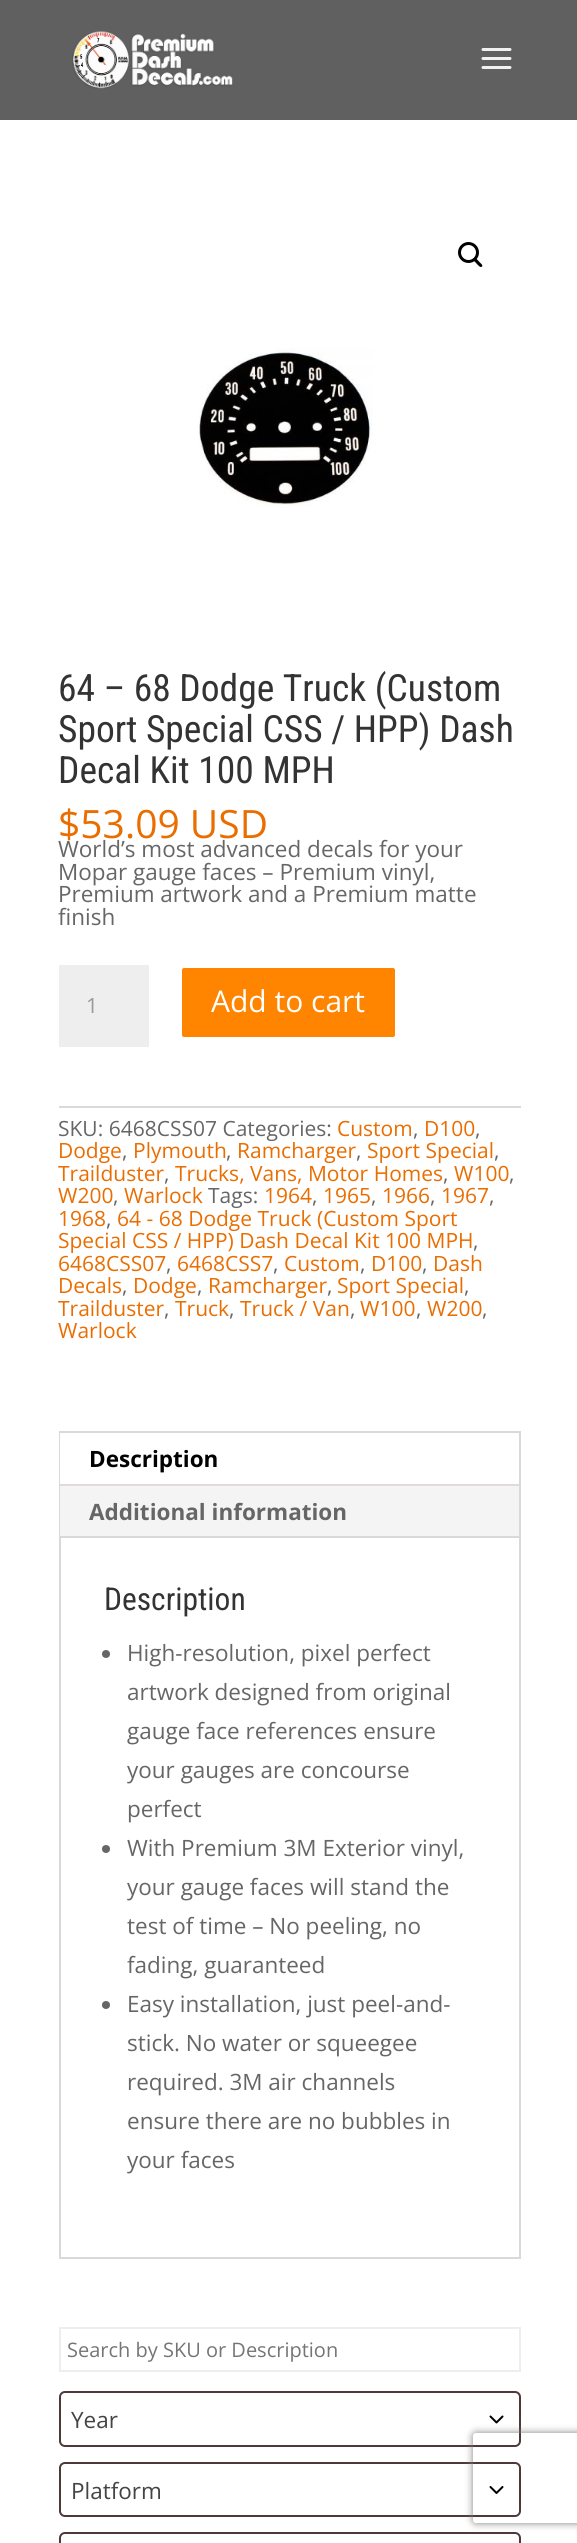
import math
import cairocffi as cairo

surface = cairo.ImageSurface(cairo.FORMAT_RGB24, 577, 2543)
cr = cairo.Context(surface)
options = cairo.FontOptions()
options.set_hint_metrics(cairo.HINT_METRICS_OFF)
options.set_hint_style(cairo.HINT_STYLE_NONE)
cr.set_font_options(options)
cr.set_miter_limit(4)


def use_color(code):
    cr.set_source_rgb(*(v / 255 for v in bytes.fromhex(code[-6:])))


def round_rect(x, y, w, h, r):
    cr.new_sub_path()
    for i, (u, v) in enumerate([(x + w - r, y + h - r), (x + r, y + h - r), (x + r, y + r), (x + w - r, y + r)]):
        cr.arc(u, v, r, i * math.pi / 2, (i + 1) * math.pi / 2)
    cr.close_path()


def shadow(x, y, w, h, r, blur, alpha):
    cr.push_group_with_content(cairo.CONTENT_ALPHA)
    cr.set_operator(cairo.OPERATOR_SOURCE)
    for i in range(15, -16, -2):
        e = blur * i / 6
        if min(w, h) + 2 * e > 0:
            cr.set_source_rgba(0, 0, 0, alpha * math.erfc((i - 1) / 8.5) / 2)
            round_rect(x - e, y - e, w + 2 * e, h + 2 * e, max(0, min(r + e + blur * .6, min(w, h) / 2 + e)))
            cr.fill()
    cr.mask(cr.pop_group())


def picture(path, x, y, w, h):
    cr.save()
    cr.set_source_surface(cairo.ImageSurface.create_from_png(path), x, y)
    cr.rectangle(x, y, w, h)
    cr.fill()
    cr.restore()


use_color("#ffffff")
cr.paint()
use_color("#606060")
cr.rectangle(0, 0, 577, 120)
cr.fill()
picture("img1.png", 72, 31, 161, 58)
picture("img2.png", 481, 48, 31, 21)
cr.arc(468.5, 252.5, 9, 0, 2 * math.pi)
use_color("#000000")
cr.set_line_width(3)
cr.stroke()
cr.new_path()
cr.move_to(473.5, 258.5)
cr.curve_to(475, 256.5, 478, 260.5, 479, 261.5)
cr.curve_to(479.5, 262.5, 483.5, 265, 482, 266.5)
cr.curve_to(480.5, 268.5, 477.5, 264.5, 476.5, 263.5)
cr.curve_to(476, 262.5, 472, 260, 473.5, 258.5)
cr.close_path()
cr.fill()
picture("img3.png", 198, 348, 175, 159)
cr.select_font_face("Roboto Condensed")
cr.set_font_size(37.5)
use_color("#333333")
cr.move_to(58, 701)
cr.show_text("64 – 68 Dodge Truck (Custom")
cr.move_to(58, 742)
cr.show_text("Sport Special CSS / HPP) Dash")
cr.move_to(58, 783)
cr.show_text("Decal Kit 100 MPH")
cr.select_font_face("Open Sans")
cr.set_font_size(39)
use_color("#ea6d00")
cr.move_to(58, 838)
cr.show_text("$53.09 USD")
cr.set_font_size(22.5)
use_color("#666666")
cr.move_to(58, 857)
cr.show_text("World’s most advanced decals for your")
cr.move_to(58, 880)
cr.show_text("Mopar gauge faces – Premium vinyl,")
cr.move_to(58, 902)
cr.show_text("Premium artwork and a Premium matte")
cr.move_to(58, 925)
cr.show_text("finish")
use_color("#eeeeee")
cr.rectangle(59, 965, 90, 82)
cr.fill()
cr.set_font_size(21)
use_color("#999999")
cr.move_to(86, 1013)
cr.show_text("1")
use_color("#ff8400")
round_rect(180.5, 966.5, 216, 72, 3.5)
cr.fill_preserve()
use_color("#ffffff")
cr.stroke()
cr.set_font_size(30)
cr.move_to(211, 1012)
cr.show_text("Add to cart")
use_color("#dadada")
cr.rectangle(59, 1106, 462, 2)
cr.fill()
cr.set_font_size(21)
use_color("#666666")
cr.move_to(58, 1136)
cr.show_text("SKU: 6468CSS07 Categories:")
use_color("#ea6d00")
cr.move_to(337, 1136)
cr.show_text("Custom")
use_color("#666666")
cr.move_to(413, 1136)
cr.show_text(",")
use_color("#ea6d00")
cr.move_to(424, 1136)
cr.show_text("D100")
use_color("#666666")
cr.move_to(475, 1136)
cr.show_text(",")
use_color("#ea6d00")
cr.move_to(58, 1158)
cr.show_text("Dodge")
use_color("#666666")
cr.move_to(122, 1158)
cr.show_text(",")
use_color("#ea6d00")
cr.move_to(133, 1158)
cr.show_text("Plymouth")
use_color("#666666")
cr.move_to(226, 1158)
cr.show_text(",")
use_color("#ea6d00")
cr.move_to(237, 1158)
cr.show_text("Ramcharger")
use_color("#666666")
cr.move_to(356, 1158)
cr.show_text(",")
use_color("#ea6d00")
cr.move_to(367, 1158)
cr.show_text("Sport Special")
use_color("#666666")
cr.move_to(494, 1158)
cr.show_text(",")
use_color("#ea6d00")
cr.move_to(58, 1181)
cr.show_text("Trailduster")
use_color("#666666")
cr.move_to(164, 1181)
cr.show_text(",")
use_color("#ea6d00")
cr.move_to(175, 1181)
cr.show_text("Trucks, Vans, Motor Homes")
use_color("#666666")
cr.move_to(443, 1181)
cr.show_text(",")
use_color("#ea6d00")
cr.move_to(454, 1181)
cr.show_text("W100")
use_color("#666666")
cr.move_to(509, 1181)
cr.show_text(",")
use_color("#ea6d00")
cr.move_to(58, 1203)
cr.show_text("W200")
use_color("#666666")
cr.move_to(113, 1203)
cr.show_text(",")
use_color("#ea6d00")
cr.move_to(124, 1203)
cr.show_text("Warlock")
use_color("#666666")
cr.move_to(208, 1203)
cr.show_text("Tags:")
use_color("#ea6d00")
cr.move_to(264, 1203)
cr.show_text("1964")
use_color("#666666")
cr.move_to(312, 1203)
cr.show_text(",")
use_color("#ea6d00")
cr.move_to(323, 1203)
cr.show_text("1965")
use_color("#666666")
cr.move_to(371, 1203)
cr.show_text(",")
use_color("#ea6d00")
cr.move_to(382, 1203)
cr.show_text("1966")
use_color("#666666")
cr.move_to(430, 1203)
cr.show_text(",")
use_color("#ea6d00")
cr.move_to(441, 1203)
cr.show_text("1967")
use_color("#666666")
cr.move_to(489, 1203)
cr.show_text(",")
use_color("#ea6d00")
cr.move_to(58, 1226)
cr.show_text("1968")
use_color("#666666")
cr.move_to(106, 1226)
cr.show_text(",")
use_color("#ea6d00")
cr.move_to(117, 1226)
cr.show_text("64 - 68 Dodge Truck (Custom Sport")
cr.move_to(58, 1248)
cr.show_text("Special CSS / HPP) Dash Decal Kit 100 MPH")
use_color("#666666")
cr.move_to(473, 1248)
cr.show_text(",")
use_color("#ea6d00")
cr.move_to(58, 1271)
cr.show_text("6468CSS07")
use_color("#666666")
cr.move_to(166, 1271)
cr.show_text(",")
use_color("#ea6d00")
cr.move_to(177, 1271)
cr.show_text("6468CSS7")
use_color("#666666")
cr.move_to(273, 1271)
cr.show_text(",")
use_color("#ea6d00")
cr.move_to(284, 1271)
cr.show_text("Custom")
use_color("#666666")
cr.move_to(360, 1271)
cr.show_text(",")
use_color("#ea6d00")
cr.move_to(371, 1271)
cr.show_text("D100")
use_color("#666666")
cr.move_to(422, 1271)
cr.show_text(",")
use_color("#ea6d00")
cr.move_to(433, 1271)
cr.show_text("Dash")
cr.move_to(58, 1293)
cr.show_text("Decals")
use_color("#666666")
cr.move_to(122, 1293)
cr.show_text(",")
use_color("#ea6d00")
cr.move_to(133, 1293)
cr.show_text("Dodge")
use_color("#666666")
cr.move_to(197, 1293)
cr.show_text(",")
use_color("#ea6d00")
cr.move_to(208, 1293)
cr.show_text("Ramcharger")
use_color("#666666")
cr.move_to(327, 1293)
cr.show_text(",")
use_color("#ea6d00")
cr.move_to(337, 1293)
cr.show_text("Sport Special")
use_color("#666666")
cr.move_to(464, 1293)
cr.show_text(",")
use_color("#ea6d00")
cr.move_to(58, 1316)
cr.show_text("Trailduster")
use_color("#666666")
cr.move_to(164, 1316)
cr.show_text(",")
use_color("#ea6d00")
cr.move_to(175, 1316)
cr.show_text("Truck")
use_color("#666666")
cr.move_to(229, 1316)
cr.show_text(",")
use_color("#ea6d00")
cr.move_to(240, 1316)
cr.show_text("Truck / Van")
use_color("#666666")
cr.move_to(350, 1316)
cr.show_text(",")
use_color("#ea6d00")
cr.move_to(360, 1316)
cr.show_text("W100")
use_color("#666666")
cr.move_to(416, 1316)
cr.show_text(",")
use_color("#ea6d00")
cr.move_to(427, 1316)
cr.show_text("W200")
use_color("#666666")
cr.move_to(482, 1316)
cr.show_text(",")
use_color("#ea6d00")
cr.move_to(58, 1338)
cr.show_text("Warlock")
cr.rectangle(60, 1432, 460, 826)
use_color("#d9d9d9")
cr.set_line_width(2)
cr.stroke()
use_color("#f4f4f4")
cr.rectangle(60, 1486, 459, 50)
cr.fill()
use_color("#ffffff")
cr.rectangle(60, 1433, 1, 51)
cr.fill()
use_color("#e0dadf")
cr.rectangle(60, 1484, 459, 2)
cr.fill()
cr.select_font_face("Open Sans", cairo.FONT_SLANT_NORMAL, cairo.FONT_WEIGHT_BOLD)
cr.set_font_size(22.5)
use_color("#000000")
cr.move_to(89, 1467)
cr.show_text("Description")
use_color("#666666")
cr.move_to(89, 1520)
cr.show_text("Additional information")
use_color("#d9d9d9")
cr.rectangle(60, 1536, 459, 2)
cr.fill()
cr.select_font_face("Roboto Condensed")
cr.set_font_size(31.5)
use_color("#333333")
cr.move_to(104, 1610)
cr.show_text("Description")
use_color("#666666")
cr.new_path()
cr.arc(106, 1654, 4, 0, 2 * math.pi)
cr.fill()
cr.select_font_face("Open Sans")
cr.set_font_size(22.5)
cr.move_to(127, 1661)
cr.show_text("High-resolution, pixel perfect")
cr.move_to(127, 1700)
cr.show_text("artwork designed from original")
cr.move_to(127, 1739)
cr.show_text("gauge face references ensure")
cr.move_to(127, 1778)
cr.show_text("your gauges are concourse")
cr.move_to(127, 1817)
cr.show_text("perfect")
cr.new_path()
cr.arc(106, 1849, 4, 0, 2 * math.pi)
cr.fill()
cr.move_to(127, 1856)
cr.show_text("With Premium 3M Exterior vinyl,")
cr.move_to(127, 1895)
cr.show_text("your gauge faces will stand the")
cr.move_to(127, 1934)
cr.show_text("test of time – No peeling, no")
cr.move_to(127, 1973)
cr.show_text("fading, guaranteed")
cr.new_path()
cr.arc(106, 2005, 4, 0, 2 * math.pi)
cr.fill()
cr.move_to(127, 2012)
cr.show_text("Easy installation, just peel-and-")
cr.move_to(127, 2051)
cr.show_text("stick. No water or squeegee")
cr.move_to(127, 2090)
cr.show_text("required. 3M air channels")
cr.move_to(127, 2129)
cr.show_text("ensure there are no bubbles in")
cr.move_to(127, 2168)
cr.show_text("your faces")
cr.rectangle(60, 2328, 460, 43)
use_color("#eeeeee")
cr.stroke()
cr.set_font_size(20)
use_color("#757575")
cr.move_to(67, 2357)
cr.show_text("Search by SKU or Description")
round_rect(60, 2392, 460, 54, 5)
use_color("#4d3939")
cr.stroke()
cr.set_font_size(22.5)
use_color("#444444")
cr.move_to(71, 2428)
cr.show_text("Year")
cr.new_path()
cr.move_to(490.5, 2416.5)
cr.line_to(496.5, 2422.5)
cr.line_to(502.5, 2416.5)
use_color("#000000")
cr.set_line_cap(cairo.LINE_CAP_ROUND)
cr.set_line_join(cairo.LINE_JOIN_ROUND)
cr.stroke()
round_rect(60, 2463, 460, 53, 5)
use_color("#4d3939")
cr.set_line_cap(cairo.LINE_CAP_BUTT)
cr.set_line_join(cairo.LINE_JOIN_MITER)
cr.stroke()
use_color("#444444")
cr.move_to(71, 2499)
cr.show_text("Platform")
cr.new_path()
cr.move_to(490.5, 2487)
cr.line_to(496.5, 2493)
cr.line_to(502.5, 2487)
use_color("#000000")
cr.set_line_cap(cairo.LINE_CAP_ROUND)
cr.set_line_join(cairo.LINE_JOIN_ROUND)
cr.stroke()
round_rect(60, 2533, 460, 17, 5)
use_color("#4d3939")
cr.set_line_cap(cairo.LINE_CAP_BUTT)
cr.set_line_join(cairo.LINE_JOIN_MITER)
cr.stroke()
cr.save()
cr.set_fill_rule(cairo.FILL_RULE_EVEN_ODD)
cr.new_path()
cr.move_to(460, 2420)
cr.line_to(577, 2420)
cr.line_to(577, 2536)
cr.line_to(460, 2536)
cr.close_path()
cr.move_to(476, 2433)
cr.line_to(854, 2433)
cr.curve_to(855.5, 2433, 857, 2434.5, 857, 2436)
cr.line_to(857, 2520)
cr.curve_to(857, 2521.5, 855.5, 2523, 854, 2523)
cr.line_to(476, 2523)
cr.curve_to(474.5, 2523, 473, 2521.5, 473, 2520)
cr.line_to(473, 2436)
cr.curve_to(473, 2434.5, 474.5, 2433, 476, 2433)
cr.close_path()
cr.clip()
use_color("#808080")
shadow(473, 2433, 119, 90, 3, 4, 1)
cr.restore()
surface.write_to_png("result.png")
